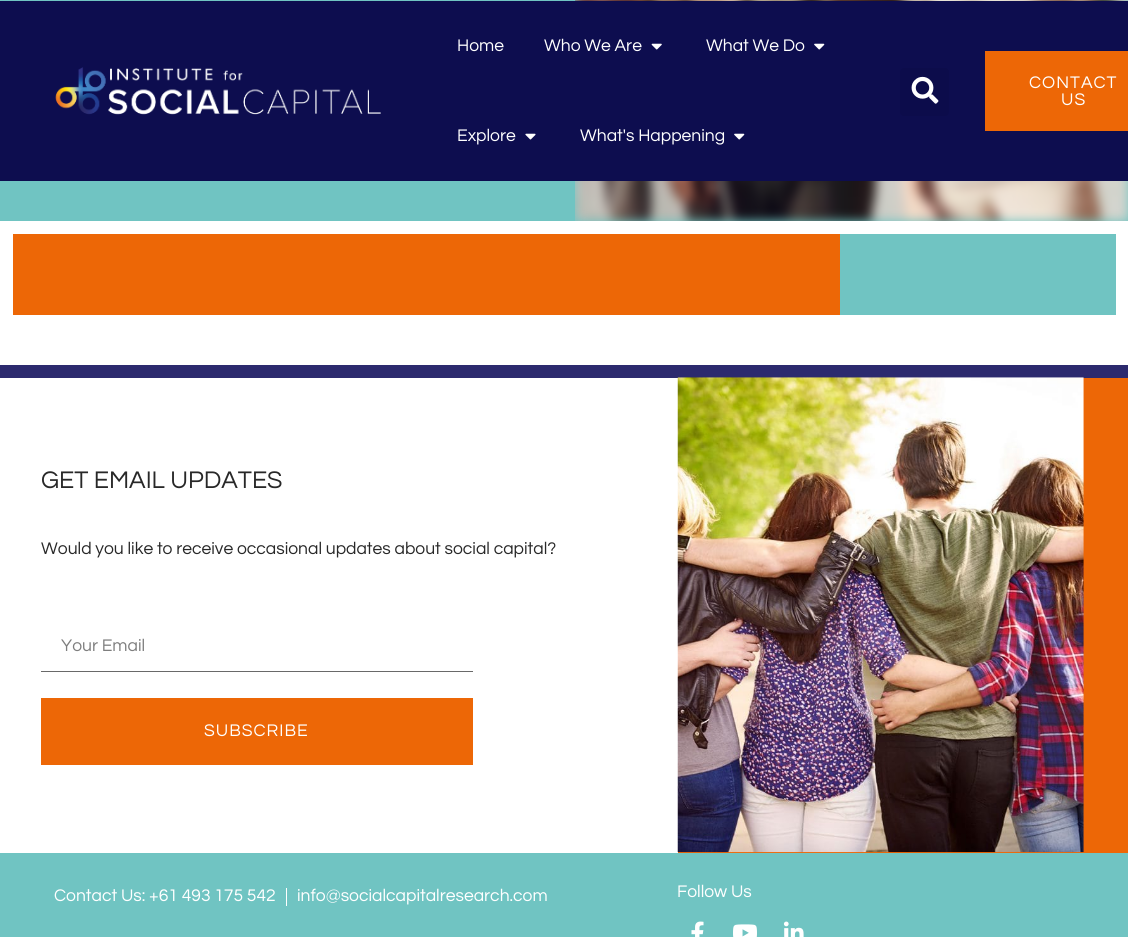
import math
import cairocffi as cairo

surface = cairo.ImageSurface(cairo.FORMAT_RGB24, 1128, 937)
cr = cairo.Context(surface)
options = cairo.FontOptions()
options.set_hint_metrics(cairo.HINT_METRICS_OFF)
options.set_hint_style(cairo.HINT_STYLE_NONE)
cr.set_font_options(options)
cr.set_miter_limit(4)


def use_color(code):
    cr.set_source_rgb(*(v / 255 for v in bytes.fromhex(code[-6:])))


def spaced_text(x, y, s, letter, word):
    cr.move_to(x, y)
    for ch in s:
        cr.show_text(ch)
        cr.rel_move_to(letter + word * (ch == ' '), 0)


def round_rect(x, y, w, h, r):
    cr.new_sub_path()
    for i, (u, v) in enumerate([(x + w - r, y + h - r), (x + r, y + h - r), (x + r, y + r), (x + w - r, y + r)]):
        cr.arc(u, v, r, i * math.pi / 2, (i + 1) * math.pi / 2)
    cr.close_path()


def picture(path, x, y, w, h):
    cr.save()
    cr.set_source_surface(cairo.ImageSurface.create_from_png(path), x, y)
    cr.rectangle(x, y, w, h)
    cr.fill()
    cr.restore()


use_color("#ffffff")
cr.paint()
use_color("#70c4c2")
cr.rectangle(0, 0, 1128, 221)
cr.fill()
picture("img1.png", 575, 0, 553, 221)
use_color("#ed6706")
cr.rectangle(13, 234, 827, 81)
cr.fill()
use_color("#70c4c2")
cr.rectangle(840, 234, 276, 81)
cr.fill()
use_color("#0d0d4f")
cr.rectangle(0, 1, 1128, 180)
cr.fill()
picture("img2.png", 55, 67, 326, 48)
cr.select_font_face("Questrial")
cr.set_font_size(17.5)
use_color("#ffffff")
cr.move_to(457, 51)
cr.show_text("Home")
cr.move_to(544, 51)
cr.show_text("Who We Are")
picture("img3.png", 651, 43, 11, 7)
cr.move_to(706, 51)
cr.show_text("What We Do")
picture("img4.png", 814, 43, 11, 7)
cr.move_to(457, 141)
cr.show_text("Explore")
picture("img5.png", 525, 133, 11, 7)
cr.move_to(580, 141)
cr.show_text("What's Happening")
picture("img4.png", 734, 133, 11, 7)
use_color("#0c0c4b")
round_rect(900, 68, 49, 48, 4)
cr.fill()
picture("img6.png", 911, 76, 28, 28)
use_color("#ed6706")
cr.rectangle(985, 51, 143, 80)
cr.fill()
use_color("#ffffff")
spaced_text(1029, 88, "CONTACT", 1, 0)
spaced_text(1061, 105, "US", 1, 0)
use_color("#2c2a6e")
cr.rectangle(0, 365, 1128, 13)
cr.fill()
cr.set_font_size(25)
use_color("#282828")
cr.move_to(41, 488)
cr.show_text("GET EMAIL UPDATES")
cr.set_font_size(17.5)
cr.move_to(41, 554)
cr.show_text("Would you like to receive occasional updates about social capital?")
use_color("#696969")
cr.rectangle(41, 671, 432, 1)
cr.fill()
use_color("#7e7e7e")
cr.move_to(61, 651)
cr.show_text("Your Email")
use_color("#ed6706")
cr.rectangle(41, 698, 432, 67)
cr.fill()
use_color("#ffffff")
spaced_text(204, 736, "SUBSCRIBE", 1, 0)
use_color("#ed6706")
cr.rectangle(678, 378, 450, 475)
cr.fill()
picture("img7.png", 677, 377, 407, 476)
use_color("#70c4c2")
cr.rectangle(0, 853, 1128, 84)
cr.fill()
use_color("#ffffff")
cr.move_to(54, 901)
cr.show_text("Contact Us: +61 493 175 542")
cr.rectangle(286, 888, 1, 18)
cr.fill()
cr.move_to(297, 901)
cr.show_text("info@socialcapitalresearch.com")
cr.move_to(677, 897)
cr.show_text("Follow Us")
picture("img8.png", 691, 921, 13, 16)
picture("img9.png", 733, 924, 24, 13)
picture("img10.png", 783, 921, 21, 16)
surface.write_to_png("result.png")
